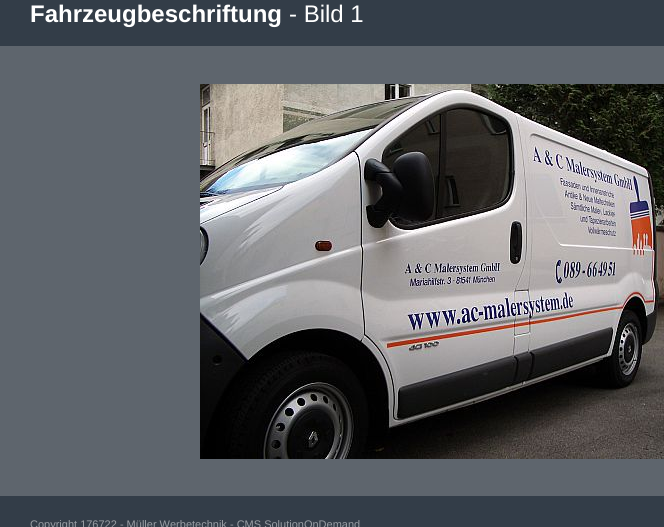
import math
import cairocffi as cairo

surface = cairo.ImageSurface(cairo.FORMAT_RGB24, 664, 527)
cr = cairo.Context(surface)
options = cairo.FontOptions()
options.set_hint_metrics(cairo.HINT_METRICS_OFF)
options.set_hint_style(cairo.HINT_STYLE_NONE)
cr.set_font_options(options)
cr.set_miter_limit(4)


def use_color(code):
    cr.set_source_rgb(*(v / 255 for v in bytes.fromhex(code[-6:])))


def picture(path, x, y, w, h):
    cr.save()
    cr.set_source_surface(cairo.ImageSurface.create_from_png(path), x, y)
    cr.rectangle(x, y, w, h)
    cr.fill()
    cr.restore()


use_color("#333d48")
cr.paint()
cr.select_font_face("Liberation Sans", cairo.FONT_SLANT_NORMAL, cairo.FONT_WEIGHT_BOLD)
cr.set_font_size(24)
use_color("#ffffff")
cr.move_to(30, 22)
cr.show_text("Fahrzeugbeschriftung")
cr.select_font_face("Liberation Sans")
cr.move_to(289, 22)
cr.show_text("- Bild 1")
use_color("#5e656d")
cr.rectangle(0, 46, 664, 450)
cr.fill()
picture("img1.png", 200, 84, 464, 375)
cr.set_font_size(11)
use_color("#999ea4")
cr.move_to(30, 528)
cr.show_text("Copyright 176722 - Müller Werbetechnik - CMS SolutionOnDemand")
surface.write_to_png("result.png")
